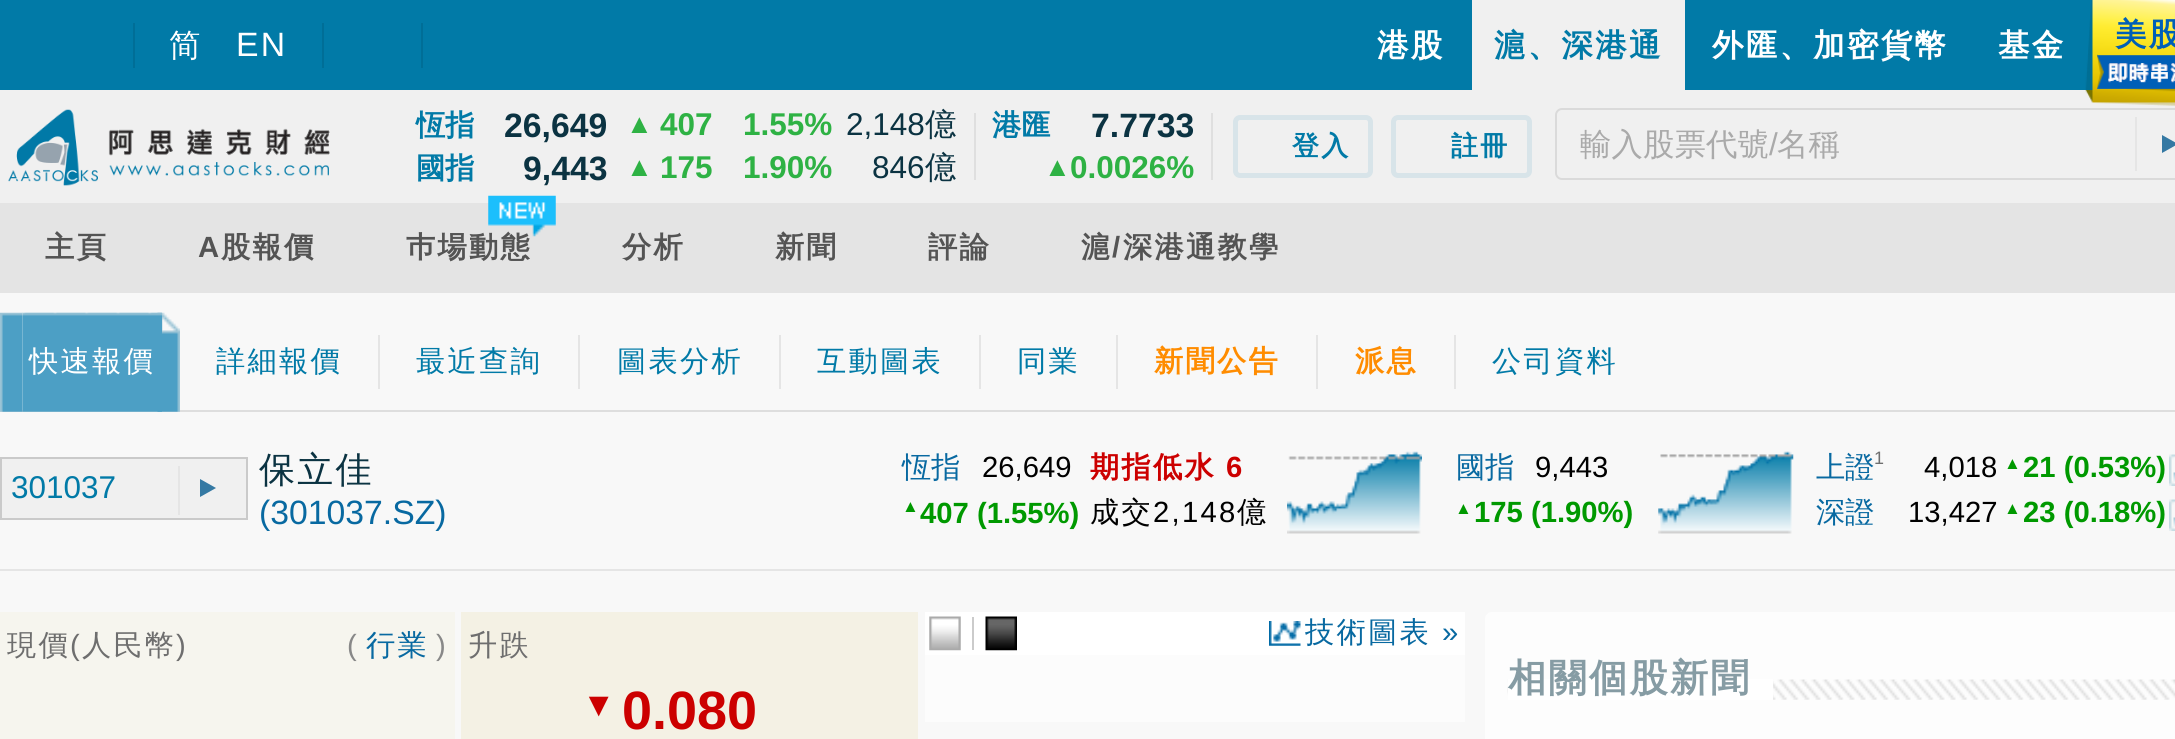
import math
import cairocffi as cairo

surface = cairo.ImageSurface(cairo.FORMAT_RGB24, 2175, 739)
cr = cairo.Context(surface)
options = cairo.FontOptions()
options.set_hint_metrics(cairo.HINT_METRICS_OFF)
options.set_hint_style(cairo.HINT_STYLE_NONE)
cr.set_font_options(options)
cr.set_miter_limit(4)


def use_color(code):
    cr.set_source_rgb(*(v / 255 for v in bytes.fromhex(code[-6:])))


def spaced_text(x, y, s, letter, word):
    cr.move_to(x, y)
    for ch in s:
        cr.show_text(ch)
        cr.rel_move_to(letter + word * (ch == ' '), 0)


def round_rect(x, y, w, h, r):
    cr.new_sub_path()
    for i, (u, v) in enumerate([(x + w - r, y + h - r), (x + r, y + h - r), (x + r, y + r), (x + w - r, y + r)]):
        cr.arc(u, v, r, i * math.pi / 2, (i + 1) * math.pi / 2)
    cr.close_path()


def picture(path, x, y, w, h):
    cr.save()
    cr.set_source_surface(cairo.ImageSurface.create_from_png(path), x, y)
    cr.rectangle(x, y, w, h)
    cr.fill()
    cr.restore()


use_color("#f8f8f8")
cr.paint()
use_color("#f0f0f0")
cr.rectangle(0, 90, 2175, 113)
cr.fill()
use_color("#017aa7")
cr.rectangle(0, 0, 2093, 90)
cr.fill()
use_color("#006e97")
cr.rectangle(133, 23, 2, 45)
cr.fill()
cr.select_font_face("WenQuanYi Zen Hei Medium")
cr.set_font_size(31.5)
use_color("#ffffff")
spaced_text(169, 56, "简", 2.25, 0)
cr.select_font_face("Liberation Sans")
cr.set_font_size(33.75)
spaced_text(236, 56, "EN", 2.25, 0)
use_color("#006e97")
cr.rectangle(322, 23, 2, 45)
cr.fill()
cr.rectangle(421, 23, 2, 45)
cr.fill()
cr.select_font_face("WenQuanYi Zen Hei", cairo.FONT_SLANT_NORMAL, cairo.FONT_WEIGHT_BOLD)
cr.set_font_size(31.5)
use_color("#ffffff")
spaced_text(1377, 56, "港股", 2.25, 0)
use_color("#f0f0f0")
cr.rectangle(1472, 0, 213, 90)
cr.fill()
use_color("#017aa7")
spaced_text(1494, 56, "滬、深港通", 2.25, 0)
use_color("#ffffff")
spaced_text(1712, 56, "外匯、加密貨幣", 2.25, 0)
spaced_text(1998, 56, "基金", 2.25, 0)
picture("img1.png", 2085, 0, 90, 106)
use_color("#005fb7")
spaced_text(2115, 45, "美股", 2.25, 0)
picture("img2.png", 8, 109, 322, 77)
cr.set_font_size(29.25)
use_color("#017aa7")
cr.move_to(416, 135)
cr.show_text("恆指")
cr.select_font_face("Liberation Sans", cairo.FONT_SLANT_NORMAL, cairo.FONT_WEIGHT_BOLD)
cr.set_font_size(33.75)
use_color("#0b3342")
cr.move_to(504, 137)
cr.show_text("26,649")
cr.set_font_size(27)
use_color("#2eb244")
cr.move_to(626, 133)
cr.show_text("▲")
cr.set_font_size(31.5)
cr.move_to(660, 135)
cr.show_text("407")
cr.move_to(743, 135)
cr.show_text("1.55%")
cr.select_font_face("Liberation Sans")
use_color("#0b3342")
cr.move_to(846, 135)
cr.show_text("2,148")
cr.select_font_face("WenQuanYi Zen Hei Medium")
cr.move_to(925, 135)
cr.show_text("億")
cr.select_font_face("WenQuanYi Zen Hei", cairo.FONT_SLANT_NORMAL, cairo.FONT_WEIGHT_BOLD)
cr.set_font_size(29.25)
use_color("#017aa7")
cr.move_to(416, 178)
cr.show_text("國指")
cr.select_font_face("Liberation Sans", cairo.FONT_SLANT_NORMAL, cairo.FONT_WEIGHT_BOLD)
cr.set_font_size(33.75)
use_color("#0b3342")
cr.move_to(523, 180)
cr.show_text("9,443")
cr.set_font_size(27)
use_color("#2eb244")
cr.move_to(626, 176)
cr.show_text("▲")
cr.set_font_size(31.5)
cr.move_to(660, 178)
cr.show_text("175")
cr.move_to(743, 178)
cr.show_text("1.90%")
cr.select_font_face("Liberation Sans")
use_color("#0b3342")
cr.move_to(872, 178)
cr.show_text("846")
cr.select_font_face("WenQuanYi Zen Hei Medium")
cr.move_to(925, 178)
cr.show_text("億")
use_color("#dfdfdf")
cr.rectangle(974, 113, 2, 67)
cr.fill()
cr.select_font_face("WenQuanYi Zen Hei", cairo.FONT_SLANT_NORMAL, cairo.FONT_WEIGHT_BOLD)
cr.set_font_size(29.25)
use_color("#017aa7")
cr.move_to(992, 135)
cr.show_text("港匯")
cr.select_font_face("Liberation Sans", cairo.FONT_SLANT_NORMAL, cairo.FONT_WEIGHT_BOLD)
cr.set_font_size(33.75)
use_color("#0b3342")
cr.move_to(1091, 137)
cr.show_text("7.7733")
cr.set_font_size(27)
use_color("#2eb244")
cr.move_to(1044, 176)
cr.show_text("▲")
cr.set_font_size(31.5)
cr.move_to(1070, 178)
cr.show_text("0.0026%")
use_color("#dfdfdf")
cr.rectangle(1211, 113, 2, 67)
cr.fill()
round_rect(1235.5, 117.5, 135, 58, 4.5)
use_color("#d8e4e9")
cr.set_line_width(5)
cr.stroke()
cr.select_font_face("WenQuanYi Zen Hei", cairo.FONT_SLANT_NORMAL, cairo.FONT_WEIGHT_BOLD)
cr.set_font_size(27)
use_color("#017aa7")
spaced_text(1292, 155, "登入", 2.25, 0)
round_rect(1393.5, 117.5, 136, 58, 4.5)
use_color("#d8e4e9")
cr.stroke()
use_color("#017aa7")
spaced_text(1451, 155, "註冊", 2.25, 0)
round_rect(1556, 109, 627, 70, 6)
use_color("#dadada")
cr.set_line_width(2)
cr.stroke()
cr.select_font_face("WenQuanYi Zen Hei Medium")
cr.set_font_size(31.5)
use_color("#aaaaaa")
cr.move_to(1580, 155)
cr.show_text("輸入股票代號")
cr.select_font_face("Liberation Sans")
cr.move_to(1769, 155)
cr.show_text("/")
cr.select_font_face("WenQuanYi Zen Hei Medium")
cr.move_to(1777, 155)
cr.show_text("名稱")
use_color("#e5e5e5")
cr.rectangle(2135, 117, 2, 54)
cr.fill()
use_color("#3579a3")
cr.new_path()
cr.move_to(2162, 153)
cr.line_to(2162, 135)
cr.line_to(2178, 144)
cr.close_path()
cr.fill()
use_color("#e4e4e4")
cr.rectangle(0, 203, 2175, 90)
cr.fill()
cr.select_font_face("WenQuanYi Zen Hei", cairo.FONT_SLANT_NORMAL, cairo.FONT_WEIGHT_BOLD)
cr.set_font_size(29.25)
use_color("#545454")
spaced_text(45, 257, "主頁", 2.25, 0)
cr.select_font_face("Liberation Sans", cairo.FONT_SLANT_NORMAL, cairo.FONT_WEIGHT_BOLD)
spaced_text(198, 257, "A", 2.25, 0)
cr.select_font_face("WenQuanYi Zen Hei", cairo.FONT_SLANT_NORMAL, cairo.FONT_WEIGHT_BOLD)
spaced_text(221, 257, "股報價", 2.25, 0)
spaced_text(406, 257, "巿場動態", 2.25, 0)
picture("img3.png", 488, 195, 68, 42)
spaced_text(622, 257, "分析", 2.25, 0)
spaced_text(775, 257, "新聞", 2.25, 0)
spaced_text(928, 257, "評論", 2.25, 0)
spaced_text(1081, 257, "滬", 2.25, 0)
cr.select_font_face("Liberation Sans", cairo.FONT_SLANT_NORMAL, cairo.FONT_WEIGHT_BOLD)
spaced_text(1112, 257, "/", 2.25, 0)
cr.select_font_face("WenQuanYi Zen Hei", cairo.FONT_SLANT_NORMAL, cairo.FONT_WEIGHT_BOLD)
spaced_text(1123, 257, "深港通教學", 2.25, 0)
use_color("#dedede")
cr.rectangle(0, 410, 2175, 2)
cr.fill()
picture("img4.png", 0, 312, 23, 100)
picture("img6.png", 157, 312, 23, 100)
picture("img5.png", 22, 312, 140, 100)
cr.select_font_face("WenQuanYi Zen Hei Medium")
use_color("#ffffff")
spaced_text(29, 371, "快速報價", 2.25, 0)
use_color("#017aa7")
spaced_text(216, 371, "詳細報價", 2.25, 0)
use_color("#e5e5e5")
cr.rectangle(378, 335, 2, 54)
cr.fill()
use_color("#017aa7")
spaced_text(416, 371, "最近查詢", 2.25, 0)
use_color("#e5e5e5")
cr.rectangle(578, 335, 2, 54)
cr.fill()
use_color("#017aa7")
spaced_text(617, 371, "圖表分析", 2.25, 0)
use_color("#e5e5e5")
cr.rectangle(779, 335, 2, 54)
cr.fill()
use_color("#017aa7")
spaced_text(817, 371, "互動圖表", 2.25, 0)
use_color("#e5e5e5")
cr.rectangle(979, 335, 2, 54)
cr.fill()
use_color("#017aa7")
spaced_text(1017, 371, "同業", 2.25, 0)
use_color("#e5e5e5")
cr.rectangle(1116, 335, 2, 54)
cr.fill()
cr.select_font_face("WenQuanYi Zen Hei", cairo.FONT_SLANT_NORMAL, cairo.FONT_WEIGHT_BOLD)
use_color("#ff8c00")
spaced_text(1154, 371, "新聞公告", 2.25, 0)
use_color("#e5e5e5")
cr.rectangle(1316, 335, 2, 54)
cr.fill()
use_color("#ff8c00")
spaced_text(1355, 371, "派息", 2.25, 0)
use_color("#e5e5e5")
cr.rectangle(1454, 335, 2, 54)
cr.fill()
cr.select_font_face("WenQuanYi Zen Hei Medium")
use_color("#017aa7")
spaced_text(1492, 371, "公司資料", 2.25, 0)
use_color("#e5e5e5")
cr.rectangle(0, 569, 2175, 2)
cr.fill()
use_color("#f0f0f0")
cr.rectangle(1, 458, 246, 61)
cr.fill_preserve()
use_color("#cacaca")
cr.stroke()
cr.select_font_face("Liberation Sans")
cr.set_font_size(31.5)
use_color("#017aa7")
cr.move_to(11, 498)
cr.show_text("301037")
use_color("#e5e5e5")
cr.rectangle(178, 466, 2, 49)
cr.fill()
use_color("#3579a3")
cr.new_path()
cr.move_to(200, 497)
cr.line_to(200, 479)
cr.line_to(216, 488)
cr.close_path()
cr.fill()
cr.select_font_face("WenQuanYi Zen Hei Medium")
cr.set_font_size(36)
use_color("#0b3342")
spaced_text(259, 482, "保立佳", 2.25, 0)
cr.select_font_face("Liberation Sans")
cr.set_font_size(33.75)
use_color("#0869a1")
cr.move_to(259, 524)
cr.show_text("(301037.SZ)")
cr.select_font_face("WenQuanYi Zen Hei Medium")
cr.set_font_size(29.25)
cr.move_to(902, 477)
cr.show_text("恆指")
cr.select_font_face("Liberation Sans")
use_color("#000000")
cr.move_to(982, 477)
cr.show_text("26,649")
cr.select_font_face("WenQuanYi Zen Hei", cairo.FONT_SLANT_NORMAL, cairo.FONT_WEIGHT_BOLD)
use_color("#cc0000")
spaced_text(1090, 477, "期指低水", 2.25, 0)
cr.select_font_face("Liberation Sans", cairo.FONT_SLANT_NORMAL, cairo.FONT_WEIGHT_BOLD)
cr.move_to(1226, 477)
cr.show_text("6")
picture("img7.png", 1287, 451, 135, 83)
cr.set_font_size(17)
use_color("#009900")
cr.move_to(902, 512)
cr.show_text("▲")
cr.set_font_size(29.25)
cr.move_to(920, 523)
cr.show_text("407 (1.55%)")
cr.select_font_face("WenQuanYi Zen Hei Medium")
use_color("#000000")
spaced_text(1090, 522, "成交", 2.25, 0)
cr.select_font_face("Liberation Sans")
spaced_text(1153, 522, "2,148", 2.25, 0)
cr.select_font_face("WenQuanYi Zen Hei Medium")
spaced_text(1237, 522, "億", 2.25, 0)
use_color("#0869a1")
cr.move_to(1456, 477)
cr.show_text("國指")
cr.select_font_face("Liberation Sans")
use_color("#000000")
cr.move_to(1535, 477)
cr.show_text("9,443")
picture("img8.png", 1658, 451, 136, 83)
cr.select_font_face("Liberation Sans", cairo.FONT_SLANT_NORMAL, cairo.FONT_WEIGHT_BOLD)
cr.set_font_size(17)
use_color("#009900")
cr.move_to(1455, 514)
cr.show_text("▲")
cr.set_font_size(29.25)
cr.move_to(1474, 522)
cr.show_text("175 (1.90%)")
cr.select_font_face("WenQuanYi Zen Hei Medium")
use_color("#0869a1")
cr.move_to(1816, 477)
cr.show_text("上證")
cr.select_font_face("Liberation Sans")
cr.set_font_size(18)
use_color("#6e6e6e")
spaced_text(1874, 464, "1", 2.25, 0)
cr.set_font_size(29.25)
use_color("#000000")
cr.move_to(1924, 477)
cr.show_text("4,018")
cr.select_font_face("Liberation Sans", cairo.FONT_SLANT_NORMAL, cairo.FONT_WEIGHT_BOLD)
cr.set_font_size(17)
use_color("#009900")
cr.move_to(2004, 469)
cr.show_text("▲")
cr.set_font_size(29.25)
cr.move_to(2023, 477)
cr.show_text("21 (0.53%)")
picture("img9.png", 2169, 454, 6, 32)
cr.select_font_face("WenQuanYi Zen Hei Medium")
use_color("#0869a1")
cr.move_to(1816, 522)
cr.show_text("深證")
cr.select_font_face("Liberation Sans")
use_color("#000000")
cr.move_to(1908, 522)
cr.show_text("13,427")
cr.select_font_face("Liberation Sans", cairo.FONT_SLANT_NORMAL, cairo.FONT_WEIGHT_BOLD)
cr.set_font_size(17)
use_color("#009900")
cr.move_to(2004, 514)
cr.show_text("▲")
cr.set_font_size(29.25)
cr.move_to(2023, 522)
cr.show_text("23 (0.18%)")
picture("img9.png", 2169, 499, 6, 32)
use_color("#f6f5ee")
cr.rectangle(0, 612, 455, 127)
cr.fill()
cr.select_font_face("WenQuanYi Zen Hei Medium")
use_color("#6e6e6e")
spaced_text(7, 655, "現價", 2.25, 0)
cr.select_font_face("Liberation Sans")
spaced_text(70, 655, "(", 2.25, 0)
cr.select_font_face("WenQuanYi Zen Hei Medium")
spaced_text(82, 655, "人民幣", 2.25, 0)
cr.select_font_face("Liberation Sans")
spaced_text(176, 655, ")", 2.25, 0)
use_color("#888888")
spaced_text(347, 655, "(", 2.25, 0)
cr.select_font_face("WenQuanYi Zen Hei Medium")
use_color("#0869a1")
spaced_text(366, 655, "行業", 2.25, 0)
cr.select_font_face("Liberation Sans")
use_color("#888888")
spaced_text(436, 655, ")", 2.25, 0)
use_color("#f4f1e4")
cr.rectangle(461, 612, 457, 127)
cr.fill()
cr.select_font_face("WenQuanYi Zen Hei Medium")
use_color("#6e6e6e")
spaced_text(468, 655, "升跌", 2.25, 0)
cr.select_font_face("Liberation Sans", cairo.FONT_SLANT_NORMAL, cairo.FONT_WEIGHT_BOLD)
cr.set_font_size(33.75)
use_color("#cc0000")
cr.move_to(582, 716)
cr.show_text("▼")
cr.set_font_size(54)
cr.move_to(622, 729)
cr.show_text("0.080")
use_color("#ffffff")
cr.rectangle(925, 612, 540, 43)
cr.fill()
picture("img10.png", 929, 616, 32, 35)
use_color("#cbcbcb")
cr.rectangle(972, 617, 2, 33)
cr.fill()
picture("img11.png", 985, 616, 32, 35)
picture("img12.png", 1269, 621, 32, 25)
cr.select_font_face("WenQuanYi Zen Hei Medium")
cr.set_font_size(29.25)
use_color("#0869a1")
spaced_text(1305, 642, "技術圖表", 2.25, 0)
cr.select_font_face("Liberation Sans")
spaced_text(1442, 642, "»", 2.25, 0)
use_color("#fcfcfc")
cr.rectangle(925, 655, 540, 67)
cr.fill()
use_color("#fdfdfd")
round_rect(1485, 612, 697, 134, 7)
cr.fill()
picture("img13.png", 1507, 679, 668, 21)
use_color("#ffffff")
cr.rectangle(1508, 679, 265, 21)
cr.fill()
cr.select_font_face("WenQuanYi Zen Hei", cairo.FONT_SLANT_NORMAL, cairo.FONT_WEIGHT_BOLD)
cr.set_font_size(38.25)
use_color("#869ca4")
spaced_text(1508, 691, "相關個股新聞", 2.25, 0)
surface.write_to_png("result.png")
